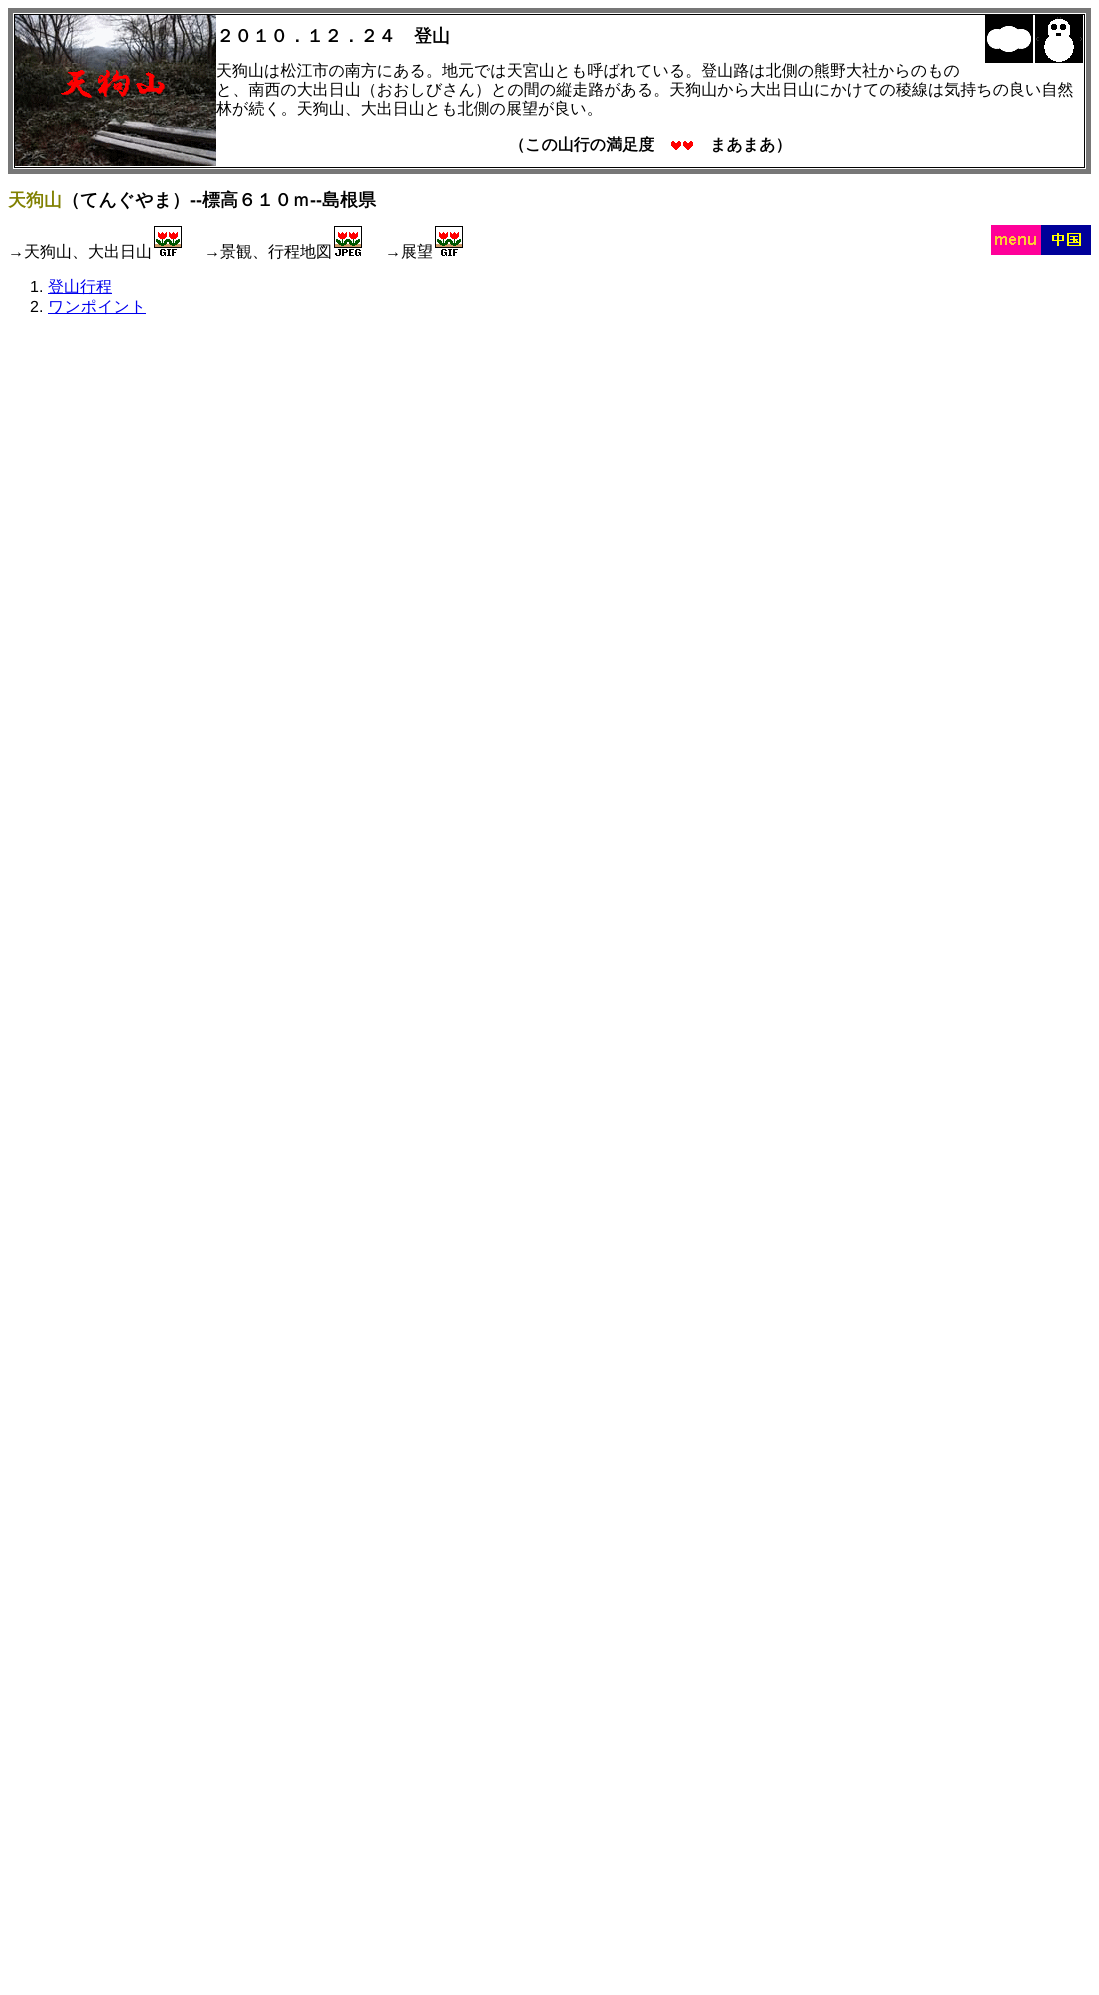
import math
import cairocffi as cairo

surface = cairo.ImageSurface(cairo.FORMAT_RGB24, 1099, 1995)
cr = cairo.Context(surface)
options = cairo.FontOptions()
options.set_hint_metrics(cairo.HINT_METRICS_OFF)
options.set_hint_style(cairo.HINT_STYLE_NONE)
cr.set_font_options(options)
cr.set_miter_limit(4)


def use_color(code):
    cr.set_source_rgb(*(v / 255 for v in bytes.fromhex(code[-6:])))


def picture(path, x, y, w, h):
    cr.save()
    cr.set_source_surface(cairo.ImageSurface.create_from_png(path), x, y)
    cr.rectangle(x, y, w, h)
    cr.fill()
    cr.restore()


use_color("#ffffff")
cr.paint()
cr.rectangle(14.5, 14.5, 1070, 153)
use_color("#000000")
cr.set_line_width(1)
cr.stroke()
picture("img1.png", 15, 15, 201, 151)
picture("img2.png", 985, 15, 48, 48)
picture("img3.png", 1035, 15, 48, 48)
picture("img4.png", 671, 141, 10, 9)
picture("img4.png", 683, 141, 10, 9)
cr.rectangle(10.5, 10.5, 1078, 161)
use_color("#777777")
cr.set_line_width(5)
cr.stroke()
cr.select_font_face("WenQuanYi Zen Hei", cairo.FONT_SLANT_NORMAL, cairo.FONT_WEIGHT_BOLD)
cr.set_font_size(18)
use_color("#000000")
cr.move_to(216, 42)
cr.show_text("２０１０．１２．２４　登山")
cr.select_font_face("WenQuanYi Zen Hei Medium")
cr.set_font_size(16)
cr.move_to(216, 76)
cr.show_text("天狗山は松江市の南方にある。地元では天宮山とも呼ばれている。登山路は北側の熊野大社からのもの")
cr.move_to(216, 95)
cr.show_text("と、南西の大出日山（おおしびさん）との間の縦走路がある。天狗山から大出日山にかけての稜線は気持ちの良い自然")
cr.move_to(216, 114)
cr.show_text("林が続く。天狗山、大出日山とも北側の展望が良い。")
cr.select_font_face("WenQuanYi Zen Hei", cairo.FONT_SLANT_NORMAL, cairo.FONT_WEIGHT_BOLD)
cr.move_to(509, 150)
cr.show_text("（この山行の満足度")
cr.move_to(710, 150)
cr.show_text("まあまあ）")
cr.set_font_size(18)
use_color("#808000")
cr.move_to(8, 206)
cr.show_text("天狗山")
use_color("#000000")
cr.move_to(62, 206)
cr.show_text("（てんぐやま）")
cr.select_font_face("Liberation Sans", cairo.FONT_SLANT_NORMAL, cairo.FONT_WEIGHT_BOLD)
cr.move_to(190, 206)
cr.show_text("--")
cr.select_font_face("WenQuanYi Zen Hei", cairo.FONT_SLANT_NORMAL, cairo.FONT_WEIGHT_BOLD)
cr.move_to(202, 206)
cr.show_text("標高６１０ｍ")
cr.select_font_face("Liberation Sans", cairo.FONT_SLANT_NORMAL, cairo.FONT_WEIGHT_BOLD)
cr.move_to(310, 206)
cr.show_text("--")
cr.select_font_face("WenQuanYi Zen Hei", cairo.FONT_SLANT_NORMAL, cairo.FONT_WEIGHT_BOLD)
cr.move_to(322, 206)
cr.show_text("島根県")
cr.select_font_face("Liberation Sans")
cr.set_font_size(16)
cr.move_to(8, 257)
cr.show_text("→")
cr.select_font_face("WenQuanYi Zen Hei Medium")
cr.move_to(24, 257)
cr.show_text("天狗山、大出日山")
picture("img5.png", 154, 226, 28, 30)
cr.select_font_face("Liberation Sans")
cr.move_to(204, 257)
cr.show_text("→")
cr.select_font_face("WenQuanYi Zen Hei Medium")
cr.move_to(220, 257)
cr.show_text("景観、行程地図")
picture("img6.png", 334, 226, 28, 30)
cr.select_font_face("Liberation Sans")
cr.move_to(385, 257)
cr.show_text("→")
cr.select_font_face("WenQuanYi Zen Hei Medium")
cr.move_to(401, 257)
cr.show_text("展望")
picture("img5.png", 435, 226, 28, 30)
picture("img7.png", 991, 225, 50, 30)
picture("img8.png", 1041, 225, 50, 30)
cr.select_font_face("Liberation Sans")
cr.move_to(30, 292)
cr.show_text("1.")
use_color("#0000ee")
cr.rectangle(48, 293, 64, 1)
cr.fill()
cr.select_font_face("WenQuanYi Zen Hei Medium")
cr.move_to(48, 292)
cr.show_text("登山行程")
cr.select_font_face("Liberation Sans")
use_color("#000000")
cr.move_to(30, 312)
cr.show_text("2.")
use_color("#0000ee")
cr.rectangle(48, 313, 98, 1)
cr.fill()
cr.select_font_face("WenQuanYi Zen Hei Medium")
cr.move_to(48, 312)
cr.show_text("ワンポイント")
surface.write_to_png("result.png")
